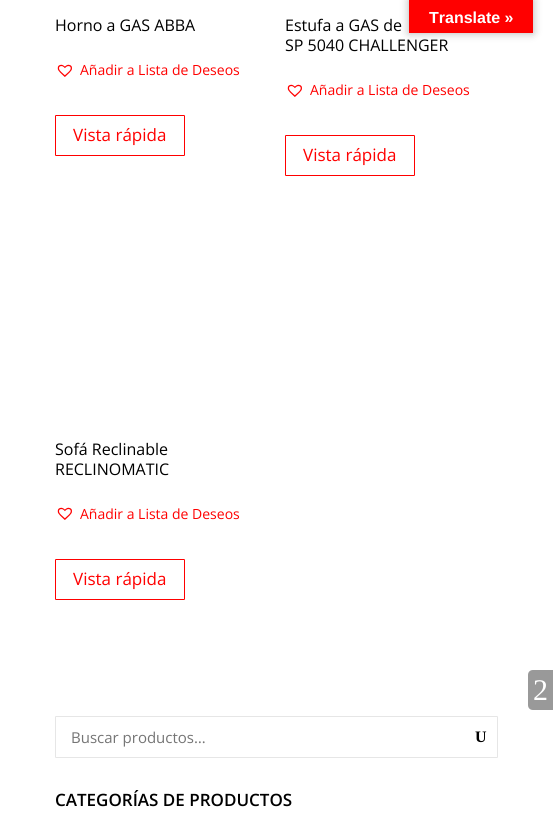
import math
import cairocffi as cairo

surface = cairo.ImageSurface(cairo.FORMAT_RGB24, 553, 835)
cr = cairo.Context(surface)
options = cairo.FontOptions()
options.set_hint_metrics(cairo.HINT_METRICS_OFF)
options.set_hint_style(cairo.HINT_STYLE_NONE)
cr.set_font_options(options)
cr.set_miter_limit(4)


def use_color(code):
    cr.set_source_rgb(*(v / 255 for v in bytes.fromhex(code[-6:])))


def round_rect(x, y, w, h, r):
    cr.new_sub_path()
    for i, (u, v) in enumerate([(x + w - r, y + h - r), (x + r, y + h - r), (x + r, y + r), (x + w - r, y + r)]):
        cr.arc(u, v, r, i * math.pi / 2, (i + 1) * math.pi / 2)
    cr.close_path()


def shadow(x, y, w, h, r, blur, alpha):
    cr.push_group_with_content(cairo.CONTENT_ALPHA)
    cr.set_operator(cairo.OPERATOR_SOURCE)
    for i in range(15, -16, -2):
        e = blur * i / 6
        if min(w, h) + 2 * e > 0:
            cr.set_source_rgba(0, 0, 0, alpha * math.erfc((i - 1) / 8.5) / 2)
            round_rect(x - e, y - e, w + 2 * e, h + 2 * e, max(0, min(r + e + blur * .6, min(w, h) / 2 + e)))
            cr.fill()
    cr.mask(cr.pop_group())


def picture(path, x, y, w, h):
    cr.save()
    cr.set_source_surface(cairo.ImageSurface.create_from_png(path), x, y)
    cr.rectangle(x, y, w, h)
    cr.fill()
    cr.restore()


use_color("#ffffff")
cr.paint()
use_color("#000000")
shadow(409, 0, 124, 33, 0, 4.5, 0.3)
use_color("#ff0000")
cr.rectangle(409, 0, 124, 33)
cr.fill()
cr.select_font_face("Liberation Sans", cairo.FONT_SLANT_NORMAL, cairo.FONT_WEIGHT_BOLD)
cr.set_font_size(16)
use_color("#ffffff")
cr.move_to(429, 23)
cr.show_text("Translate »")
cr.select_font_face("Open Sans")
use_color("#000000")
cr.move_to(55, 31)
cr.show_text("Horno a GAS ABBA")
picture("img1.png", 57, 64, 15, 13)
cr.set_font_size(14)
use_color("#ff0000")
cr.move_to(80, 75)
cr.show_text("Añadir a Lista de Deseos")
round_rect(55.5, 115.5, 129, 40, 0.5)
cr.set_line_width(1)
cr.stroke()
cr.set_font_size(17)
cr.move_to(73, 141)
cr.show_text("Vista rápida")
cr.set_font_size(16)
use_color("#000000")
cr.move_to(285, 31)
cr.show_text("Estufa a GAS de")
cr.move_to(285, 51)
cr.show_text("SP 5040 CHALLENGER")
picture("img1.png", 287, 84, 15, 13)
cr.set_font_size(14)
use_color("#ff0000")
cr.move_to(310, 95)
cr.show_text("Añadir a Lista de Deseos")
round_rect(285.5, 135.5, 129, 40, 0.5)
cr.stroke()
cr.set_font_size(17)
cr.move_to(303, 161)
cr.show_text("Vista rápida")
cr.set_font_size(16)
use_color("#000000")
cr.move_to(55, 455)
cr.show_text("Sofá Reclinable")
cr.move_to(55, 475)
cr.show_text("RECLINOMATIC")
picture("img1.png", 57, 507, 15, 13)
cr.set_font_size(14)
use_color("#ff0000")
cr.move_to(80, 519)
cr.show_text("Añadir a Lista de Deseos")
round_rect(55.5, 559.5, 129, 40, 0.5)
cr.stroke()
cr.set_font_size(17)
cr.move_to(73, 585)
cr.show_text("Vista rápida")
round_rect(55.5, 716.5, 442, 41, 0.5)
use_color("#e6e6e6")
cr.stroke()
cr.set_font_size(15)
use_color("#757575")
cr.move_to(71, 743)
cr.show_text("Buscar productos…")
cr.select_font_face("Liberation Serif", cairo.FONT_SLANT_NORMAL, cairo.FONT_WEIGHT_BOLD)
cr.set_font_size(16)
use_color("#000000")
cr.move_to(475, 742)
cr.show_text("U")
cr.select_font_face("Open Sans SemiBold")
cr.set_font_size(17)
cr.move_to(55, 806)
cr.show_text("CATEGORÍAS DE PRODUCTOS")
use_color("#999999")
cr.new_path()
cr.move_to(533, 670)
cr.line_to(553, 670)
cr.line_to(553, 710)
cr.line_to(533, 710)
cr.curve_to(530, 710, 528, 708, 528, 705)
cr.line_to(528, 675)
cr.curve_to(528, 672, 530, 670, 533, 670)
cr.close_path()
cr.fill()
cr.select_font_face("Liberation Serif")
cr.set_font_size(30)
use_color("#ffffff")
cr.move_to(533, 700)
cr.show_text("2")
surface.write_to_png("result.png")
